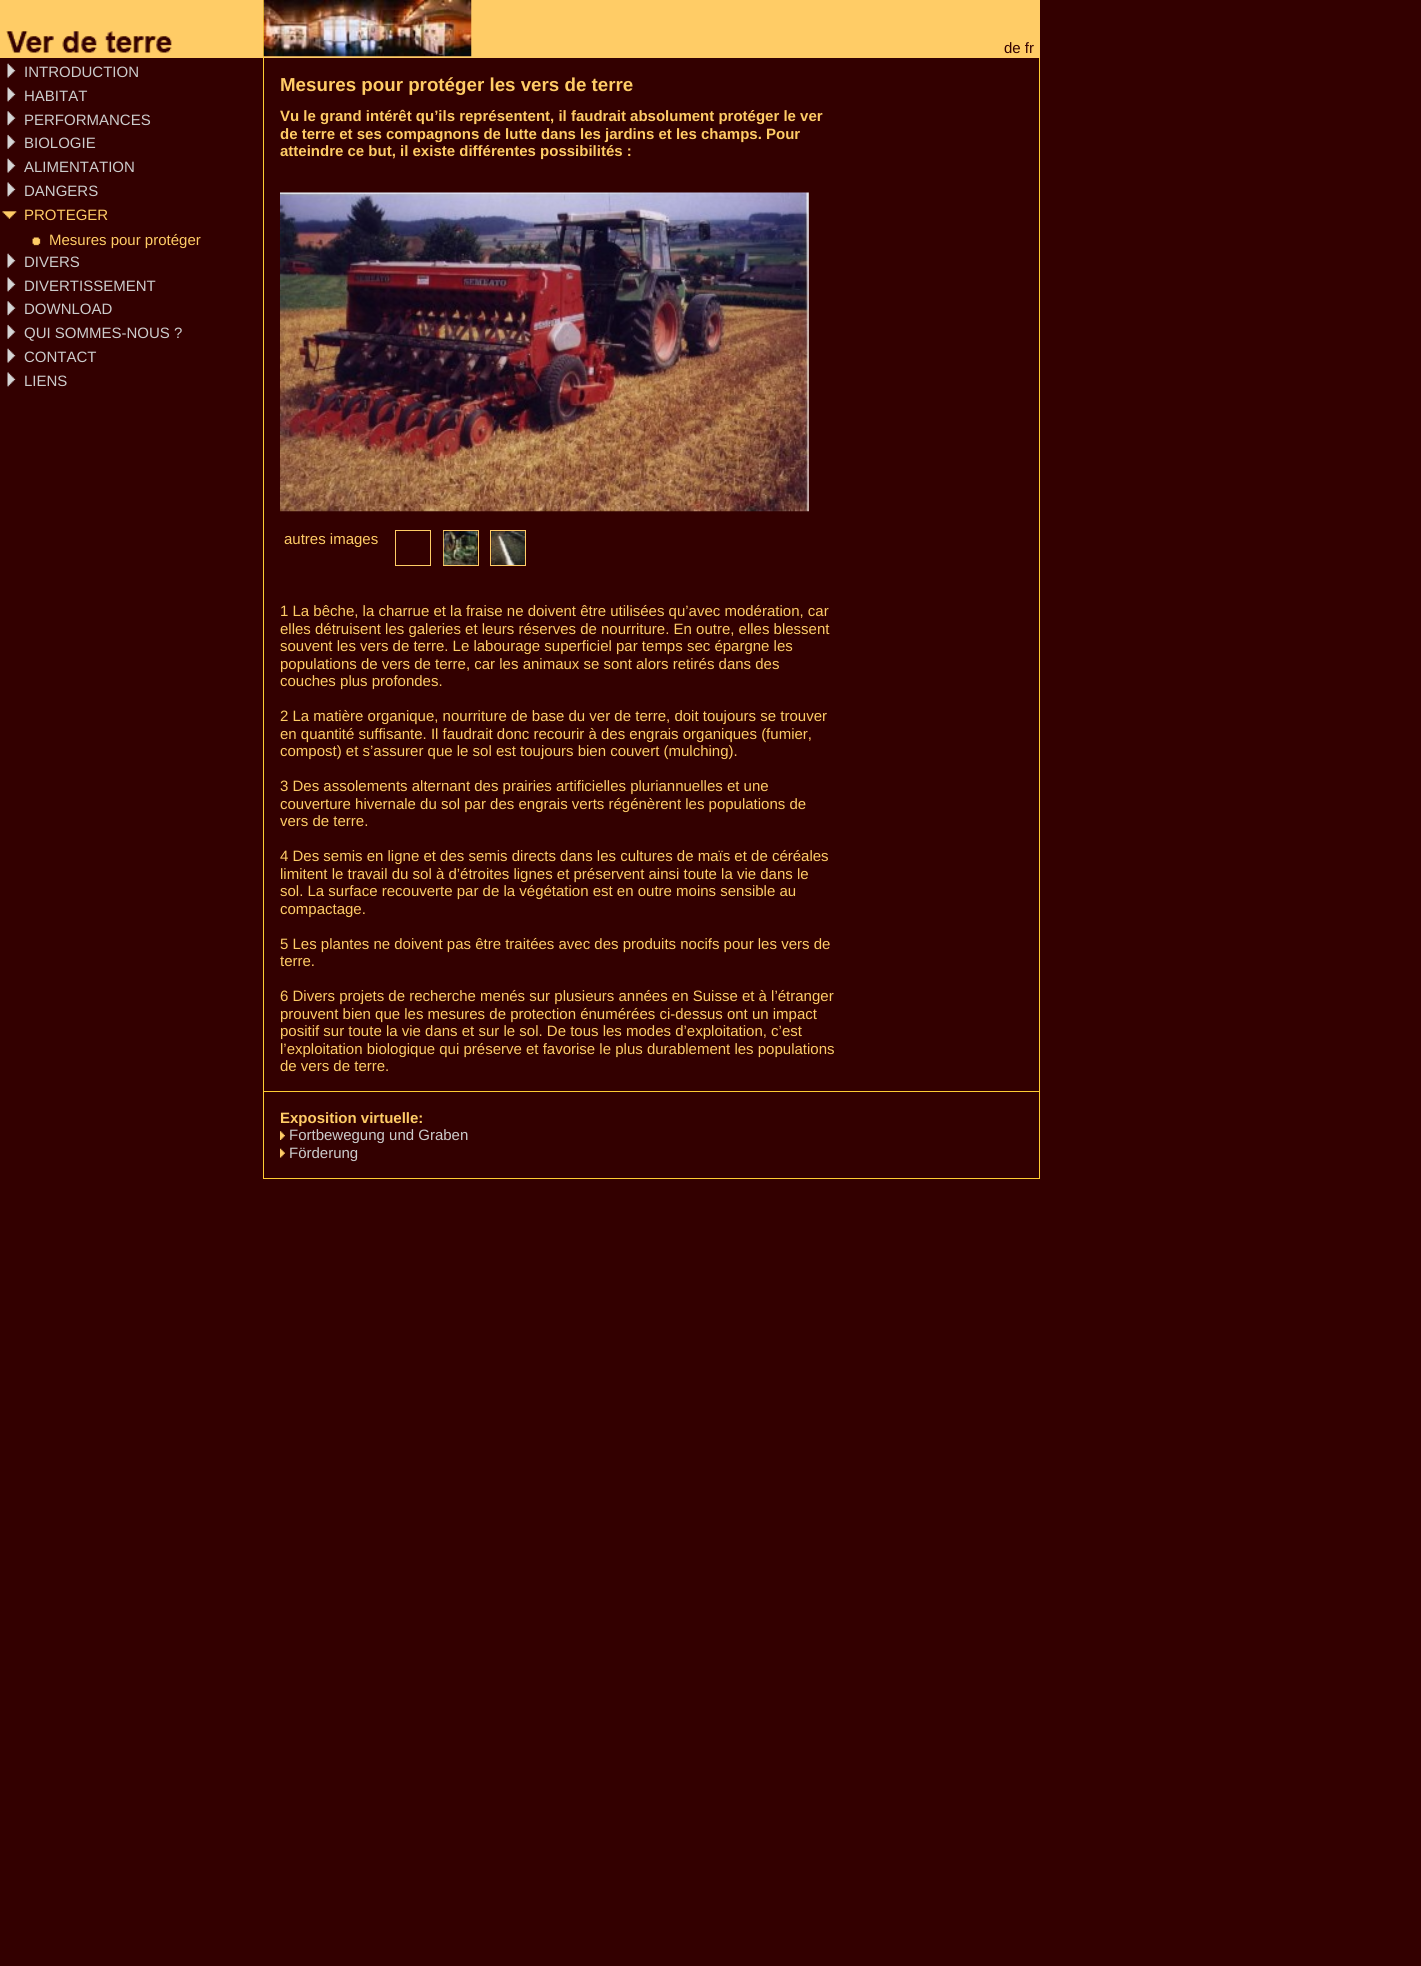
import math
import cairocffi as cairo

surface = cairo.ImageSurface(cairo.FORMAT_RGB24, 1421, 1966)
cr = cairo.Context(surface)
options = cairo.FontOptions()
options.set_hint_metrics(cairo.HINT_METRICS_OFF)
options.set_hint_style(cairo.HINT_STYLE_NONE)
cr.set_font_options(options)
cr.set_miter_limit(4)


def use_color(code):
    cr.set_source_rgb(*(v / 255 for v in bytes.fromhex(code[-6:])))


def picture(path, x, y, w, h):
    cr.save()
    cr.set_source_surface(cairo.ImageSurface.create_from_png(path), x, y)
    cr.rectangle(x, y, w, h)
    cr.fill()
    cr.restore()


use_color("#330000")
cr.paint()
use_color("#ffcc66")
cr.rectangle(0, 0, 263, 58)
cr.fill()
picture("img1.png", 6, 31, 166, 22)
cr.rectangle(264, 56, 207, 2)
cr.fill()
use_color("#ffcc33")
cr.rectangle(263, 0, 1, 58)
cr.fill()
use_color("#ffcc66")
cr.rectangle(471, 0, 569, 58)
cr.fill()
picture("img2.png", 263, 0, 209, 57)
cr.select_font_face("Liberation Sans")
cr.set_font_size(15)
use_color("#330000")
cr.move_to(1004, 53)
cr.show_text("de fr")
picture("img3.png", 7, 63, 9, 15)
use_color("#cccccc")
cr.move_to(24, 77)
cr.show_text("INTRODUCTION")
picture("img4.png", 7, 87, 9, 15)
cr.move_to(24, 101)
cr.show_text("HABITAT")
picture("img5.png", 7, 111, 9, 15)
cr.move_to(24, 125)
cr.show_text("PERFORMANCES")
picture("img6.png", 7, 134, 9, 15)
cr.move_to(24, 148)
cr.show_text("BIOLOGIE")
picture("img3.png", 7, 158, 9, 15)
cr.move_to(24, 172)
cr.show_text("ALIMENTATION")
picture("img4.png", 7, 182, 9, 15)
cr.move_to(24, 196)
cr.show_text("DANGERS")
picture("img7.png", 2, 211, 15, 8)
use_color("#ffcc66")
cr.move_to(24, 220)
cr.show_text("PROTEGER")
picture("img8.png", 32, 237, 9, 9)
cr.move_to(49, 245)
cr.show_text("Mesures pour protéger")
picture("img3.png", 7, 253, 9, 15)
use_color("#cccccc")
cr.move_to(24, 267)
cr.show_text("DIVERS")
picture("img4.png", 7, 277, 9, 15)
cr.move_to(24, 291)
cr.show_text("DIVERTISSEMENT")
picture("img5.png", 7, 301, 9, 15)
cr.move_to(24, 314)
cr.show_text("DOWNLOAD")
picture("img6.png", 7, 324, 9, 15)
cr.move_to(24, 338)
cr.show_text("QUI SOMMES-NOUS ?")
picture("img3.png", 7, 348, 9, 15)
cr.move_to(24, 362)
cr.show_text("CONTACT")
picture("img4.png", 7, 372, 9, 15)
cr.move_to(24, 386)
cr.show_text("LIENS")
use_color("#ffcc33")
cr.rectangle(1039, 58, 1, 1121)
cr.fill()
cr.rectangle(263, 1091, 777, 1)
cr.fill()
cr.rectangle(263, 58, 1, 1035)
cr.fill()
cr.select_font_face("Liberation Sans", cairo.FONT_SLANT_NORMAL, cairo.FONT_WEIGHT_BOLD)
cr.set_font_size(18.75)
use_color("#ffcc66")
cr.move_to(280, 91)
cr.show_text("Mesures pour protéger les vers de terre")
cr.set_font_size(15)
cr.move_to(280, 121)
cr.show_text("Vu le grand intérêt qu’ils représentent, il faudrait absolument protéger le ver")
cr.move_to(280, 139)
cr.show_text("de terre et ses compagnons de lutte dans les jardins et les champs. Pour")
cr.move_to(280, 156)
cr.show_text("atteindre ce but, il existe différentes possibilités :")
picture("img9.png", 280, 192, 529, 320)
cr.select_font_face("Liberation Sans")
cr.move_to(284, 544)
cr.show_text("autres images")
cr.rectangle(395.5, 530.5, 35, 35)
cr.set_line_width(1)
cr.stroke()
cr.rectangle(443.5, 530.5, 35, 35)
cr.stroke()
picture("img10.png", 443, 531, 35, 34)
cr.rectangle(490.5, 530.5, 35, 35)
cr.stroke()
picture("img11.png", 491, 531, 34, 34)
cr.move_to(280, 616)
cr.show_text("1 La bêche, la charrue et la fraise ne doivent être utilisées qu’avec modération, car")
cr.move_to(280, 634)
cr.show_text("elles détruisent les galeries et leurs réserves de nourriture. En outre, elles blessent")
cr.move_to(280, 651)
cr.show_text("souvent les vers de terre. Le labourage superficiel par temps sec épargne les")
cr.move_to(280, 669)
cr.show_text("populations de vers de terre, car les animaux se sont alors retirés dans des")
cr.move_to(280, 686)
cr.show_text("couches plus profondes.")
cr.move_to(280, 721)
cr.show_text("2 La matière organique, nourriture de base du ver de terre, doit toujours se trouver")
cr.move_to(280, 739)
cr.show_text("en quantité suffisante. Il faudrait donc recourir à des engrais organiques (fumier,")
cr.move_to(280, 756)
cr.show_text("compost) et s’assurer que le sol est toujours bien couvert (mulching).")
cr.move_to(280, 791)
cr.show_text("3 Des assolements alternant des prairies artificielles pluriannuelles et une")
cr.move_to(280, 809)
cr.show_text("couverture hivernale du sol par des engrais verts régénèrent les populations de")
cr.move_to(280, 826)
cr.show_text("vers de terre.")
cr.move_to(280, 861)
cr.show_text("4 Des semis en ligne et des semis directs dans les cultures de maïs et de céréales")
cr.move_to(280, 879)
cr.show_text("limitent le travail du sol à d’étroites lignes et préservent ainsi toute la vie dans le")
cr.move_to(280, 896)
cr.show_text("sol. La surface recouverte par de la végétation est en outre moins sensible au")
cr.move_to(280, 914)
cr.show_text("compactage.")
cr.move_to(280, 949)
cr.show_text("5 Les plantes ne doivent pas être traitées avec des produits nocifs pour les vers de")
cr.move_to(280, 966)
cr.show_text("terre.")
cr.move_to(280, 1001)
cr.show_text("6 Divers projets de recherche menés sur plusieurs années en Suisse et à l’étranger")
cr.move_to(280, 1019)
cr.show_text("prouvent bien que les mesures de protection énumérées ci-dessus ont un impact")
cr.move_to(280, 1036)
cr.show_text("positif sur toute la vie dans et sur le sol. De tous les modes d’exploitation, c’est")
cr.move_to(280, 1054)
cr.show_text("l’exploitation biologique qui préserve et favorise le plus durablement les populations")
cr.move_to(280, 1071)
cr.show_text("de vers de terre.")
use_color("#ffcc33")
cr.rectangle(263, 1178, 777, 1)
cr.fill()
cr.rectangle(263, 1093, 1, 86)
cr.fill()
cr.select_font_face("Liberation Sans", cairo.FONT_SLANT_NORMAL, cairo.FONT_WEIGHT_BOLD)
use_color("#ffcc66")
cr.move_to(280, 1123)
cr.show_text("Exposition virtuelle:")
picture("img12.png", 280, 1131, 5, 9)
cr.select_font_face("Liberation Sans")
use_color("#cccccc")
cr.move_to(289, 1140)
cr.show_text("Fortbewegung und Graben")
picture("img13.png", 280, 1148, 5, 10)
cr.move_to(289, 1158)
cr.show_text("Förderung")
surface.write_to_png("result.png")
